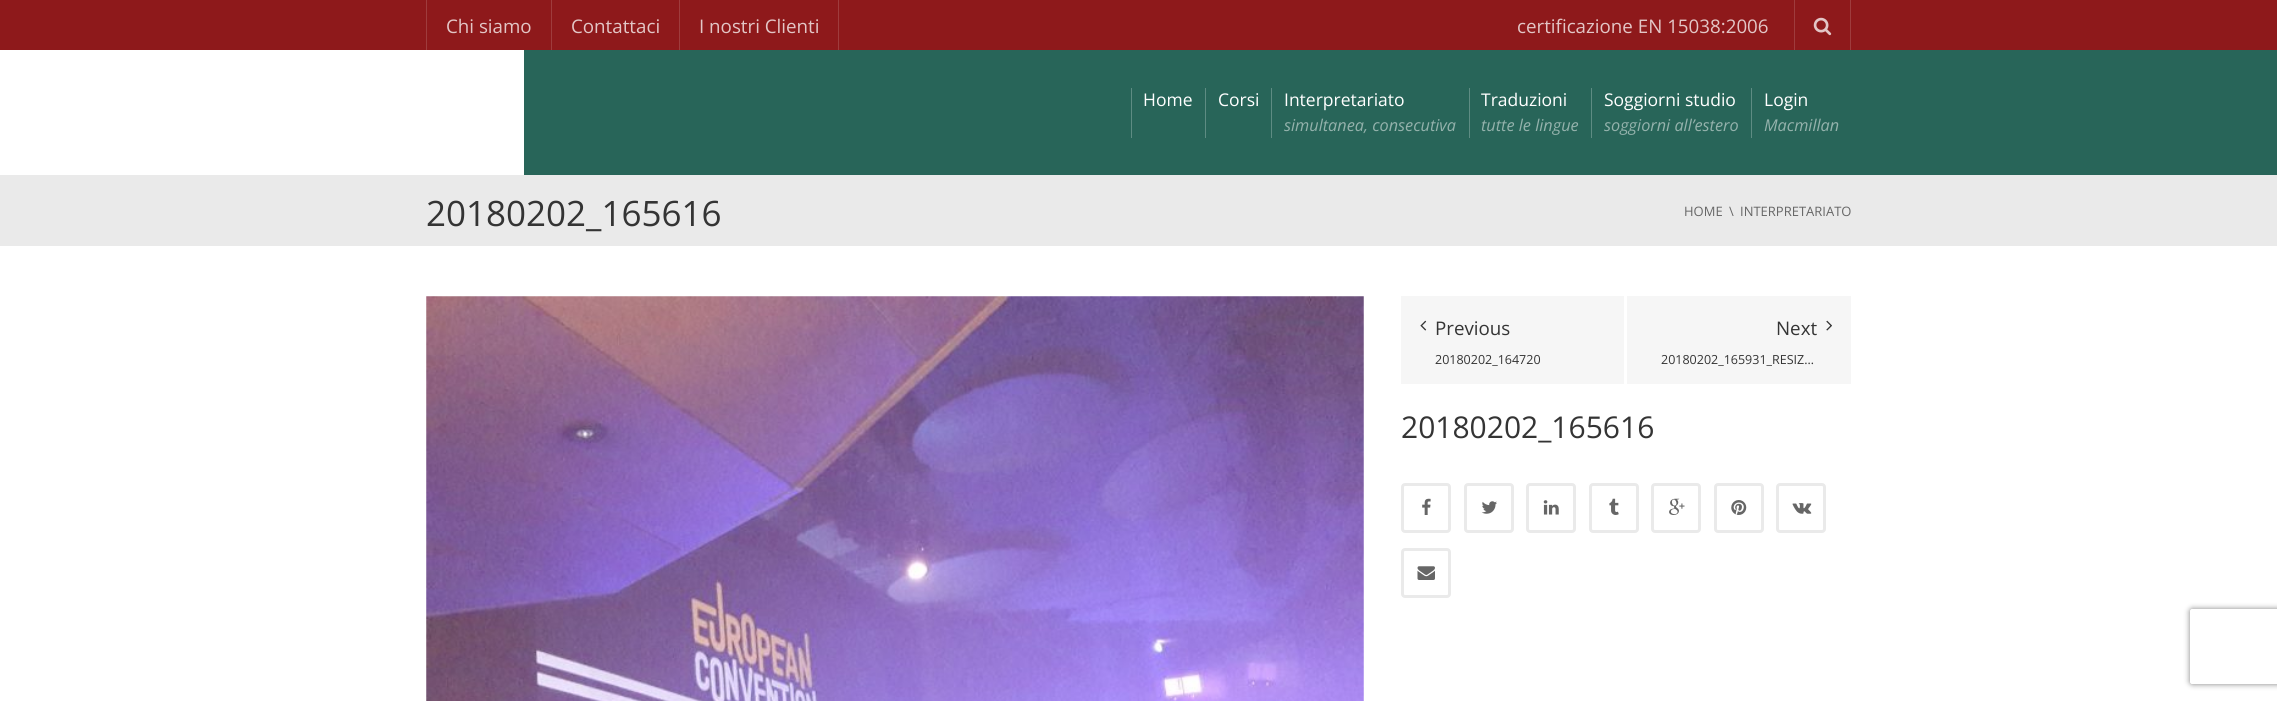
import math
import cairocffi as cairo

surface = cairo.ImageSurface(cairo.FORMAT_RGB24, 2277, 701)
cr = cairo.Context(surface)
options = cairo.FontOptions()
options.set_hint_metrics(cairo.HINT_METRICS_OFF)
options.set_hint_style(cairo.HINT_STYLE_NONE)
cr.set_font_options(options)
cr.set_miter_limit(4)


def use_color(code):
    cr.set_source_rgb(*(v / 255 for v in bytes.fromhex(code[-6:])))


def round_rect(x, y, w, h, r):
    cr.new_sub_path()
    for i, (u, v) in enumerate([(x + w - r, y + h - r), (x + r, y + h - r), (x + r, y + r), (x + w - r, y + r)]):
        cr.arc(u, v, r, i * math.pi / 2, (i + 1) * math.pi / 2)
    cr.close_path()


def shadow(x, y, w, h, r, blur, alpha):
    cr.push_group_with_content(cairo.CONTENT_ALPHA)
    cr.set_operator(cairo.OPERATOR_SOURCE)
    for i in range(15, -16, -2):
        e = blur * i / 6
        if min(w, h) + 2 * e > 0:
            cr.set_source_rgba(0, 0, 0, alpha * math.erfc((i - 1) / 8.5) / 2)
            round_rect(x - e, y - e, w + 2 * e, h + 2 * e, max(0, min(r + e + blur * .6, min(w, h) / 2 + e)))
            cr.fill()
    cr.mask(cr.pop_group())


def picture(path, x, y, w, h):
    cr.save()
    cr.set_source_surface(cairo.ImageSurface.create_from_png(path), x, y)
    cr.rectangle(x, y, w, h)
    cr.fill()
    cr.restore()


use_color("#ffffff")
cr.paint()
use_color("#8e191b")
cr.rectangle(0, 0, 2277, 50)
cr.fill()
use_color("#9f3c3d")
cr.rectangle(426, 0, 1, 50)
cr.fill()
cr.select_font_face("Open Sans")
cr.set_font_size(18.75)
use_color("#e3c6c6")
cr.move_to(446, 33)
cr.show_text("Chi siamo")
use_color("#9f3c3d")
cr.rectangle(551, 0, 1, 50)
cr.fill()
use_color("#e3c6c6")
cr.move_to(571, 33)
cr.show_text("Contattaci")
use_color("#9f3c3d")
cr.rectangle(838, 0, 1, 50)
cr.fill()
cr.rectangle(679, 0, 1, 50)
cr.fill()
use_color("#e3c6c6")
cr.move_to(699, 33)
cr.show_text("I nostri Clienti")
cr.move_to(1517, 33)
cr.show_text("certificazione EN 15038:2006")
use_color("#9f3c3d")
cr.rectangle(1850, 0, 1, 50)
cr.fill()
cr.rectangle(1794, 0, 1, 50)
cr.fill()
picture("img1.png", 1813, 17, 19, 19)
use_color("#286559")
cr.rectangle(524, 50, 1753, 125)
cr.fill()
use_color("#5e8c83")
cr.rectangle(1131, 88, 1, 50)
cr.fill()
cr.set_font_size(17.5)
use_color("#ffffff")
cr.move_to(1143, 106)
cr.show_text("Home")
use_color("#5e8c83")
cr.rectangle(1205, 88, 1, 50)
cr.fill()
use_color("#ffffff")
cr.move_to(1218, 106)
cr.show_text("Corsi")
use_color("#5e8c83")
cr.rectangle(1271, 88, 1, 50)
cr.fill()
use_color("#ffffff")
cr.move_to(1284, 106)
cr.show_text("Interpretariato")
cr.select_font_face("Open Sans", cairo.FONT_SLANT_ITALIC)
cr.set_font_size(16.25)
use_color("#94b2ac")
cr.move_to(1284, 131)
cr.show_text("simultanea, consecutiva")
use_color("#5e8c83")
cr.rectangle(1469, 88, 1, 50)
cr.fill()
cr.select_font_face("Open Sans")
cr.set_font_size(17.5)
use_color("#ffffff")
cr.move_to(1481, 106)
cr.show_text("Traduzioni")
cr.select_font_face("Open Sans", cairo.FONT_SLANT_ITALIC)
cr.set_font_size(16.25)
use_color("#94b2ac")
cr.move_to(1481, 131)
cr.show_text("tutte le lingue")
use_color("#5e8c83")
cr.rectangle(1591, 88, 1, 50)
cr.fill()
cr.select_font_face("Open Sans")
cr.set_font_size(17.5)
use_color("#ffffff")
cr.move_to(1604, 106)
cr.show_text("Soggiorni studio")
cr.select_font_face("Open Sans", cairo.FONT_SLANT_ITALIC)
cr.set_font_size(16.25)
use_color("#94b2ac")
cr.move_to(1604, 131)
cr.show_text("soggiorni all’estero")
use_color("#5e8c83")
cr.rectangle(1751, 88, 1, 50)
cr.fill()
cr.select_font_face("Open Sans")
cr.set_font_size(17.5)
use_color("#ffffff")
cr.move_to(1764, 106)
cr.show_text("Login")
cr.select_font_face("Open Sans", cairo.FONT_SLANT_ITALIC)
cr.set_font_size(16.25)
use_color("#94b2ac")
cr.move_to(1764, 131)
cr.show_text("Macmillan")
use_color("#eaeaea")
cr.rectangle(0, 175, 2277, 71)
cr.fill()
cr.select_font_face("Open Sans")
cr.set_font_size(35)
use_color("#343434")
cr.move_to(426, 226)
cr.show_text("20180202_165616")
cr.set_font_size(13)
use_color("#666666")
cr.move_to(1684, 216)
cr.show_text("HOME")
cr.move_to(1729, 216)
cr.show_text("\\")
cr.move_to(1740, 216)
cr.show_text("INTERPRETARIATO")
picture("img2.png", 426, 296, 938, 405)
use_color("#f6f6f6")
cr.rectangle(1401, 296, 450, 88)
cr.fill()
use_color("#ffffff")
cr.rectangle(1624, 296, 3, 88)
cr.fill()
picture("img3.png", 1420, 320, 7, 11)
cr.set_font_size(18.75)
use_color("#343434")
cr.move_to(1435, 335)
cr.show_text("Previous")
cr.set_font_size(12.5)
cr.move_to(1435, 364)
cr.show_text("20180202_164720")
cr.set_font_size(18.75)
cr.move_to(1776, 335)
cr.show_text("Next")
cr.set_font_size(12.5)
cr.move_to(1661, 364)
cr.show_text("20180202_165931_RESIZ…")
picture("img4.png", 1826, 320, 6, 11)
cr.set_font_size(30)
cr.move_to(1401, 438)
cr.show_text("20180202_165616")
round_rect(1402.5, 484.5, 47, 47, 2.5)
use_color("#eaeaea")
cr.set_line_width(3)
cr.stroke()
picture("img5.png", 1422, 498, 9, 17)
round_rect(1465.5, 484.5, 47, 47, 2.5)
cr.stroke()
picture("img6.png", 1481, 501, 16, 13)
round_rect(1527.5, 484.5, 47, 47, 2.5)
cr.stroke()
picture("img7.png", 1543, 500, 16, 15)
round_rect(1590.5, 484.5, 47, 47, 2.5)
cr.stroke()
picture("img8.png", 1609, 498, 10, 17)
round_rect(1652.5, 484.5, 47, 47, 2.5)
cr.stroke()
picture("img9.png", 1669, 498, 16, 17)
round_rect(1715.5, 484.5, 47, 47, 2.5)
cr.stroke()
picture("img10.png", 1731, 500, 16, 15)
round_rect(1777.5, 484.5, 47, 47, 2.5)
cr.stroke()
picture("img11.png", 1792, 503, 20, 11)
round_rect(1402.5, 549.5, 47, 47, 2.5)
cr.stroke()
picture("img12.png", 1417, 566, 18, 14)
cr.save()
cr.set_fill_rule(cairo.FILL_RULE_EVEN_ODD)
cr.new_path()
cr.move_to(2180, 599)
cr.line_to(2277, 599)
cr.line_to(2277, 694)
cr.line_to(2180, 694)
cr.close_path()
cr.move_to(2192.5, 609)
cr.line_to(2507.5, 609)
cr.curve_to(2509, 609, 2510, 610, 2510, 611.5)
cr.line_to(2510, 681.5)
cr.curve_to(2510, 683, 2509, 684, 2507.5, 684)
cr.line_to(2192.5, 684)
cr.curve_to(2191, 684, 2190, 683, 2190, 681.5)
cr.line_to(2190, 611.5)
cr.curve_to(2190, 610, 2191, 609, 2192.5, 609)
cr.close_path()
cr.clip()
use_color("#808080")
shadow(2190, 609, 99, 75, 2.5, 3, 1)
cr.restore()
surface.write_to_png("result.png")
